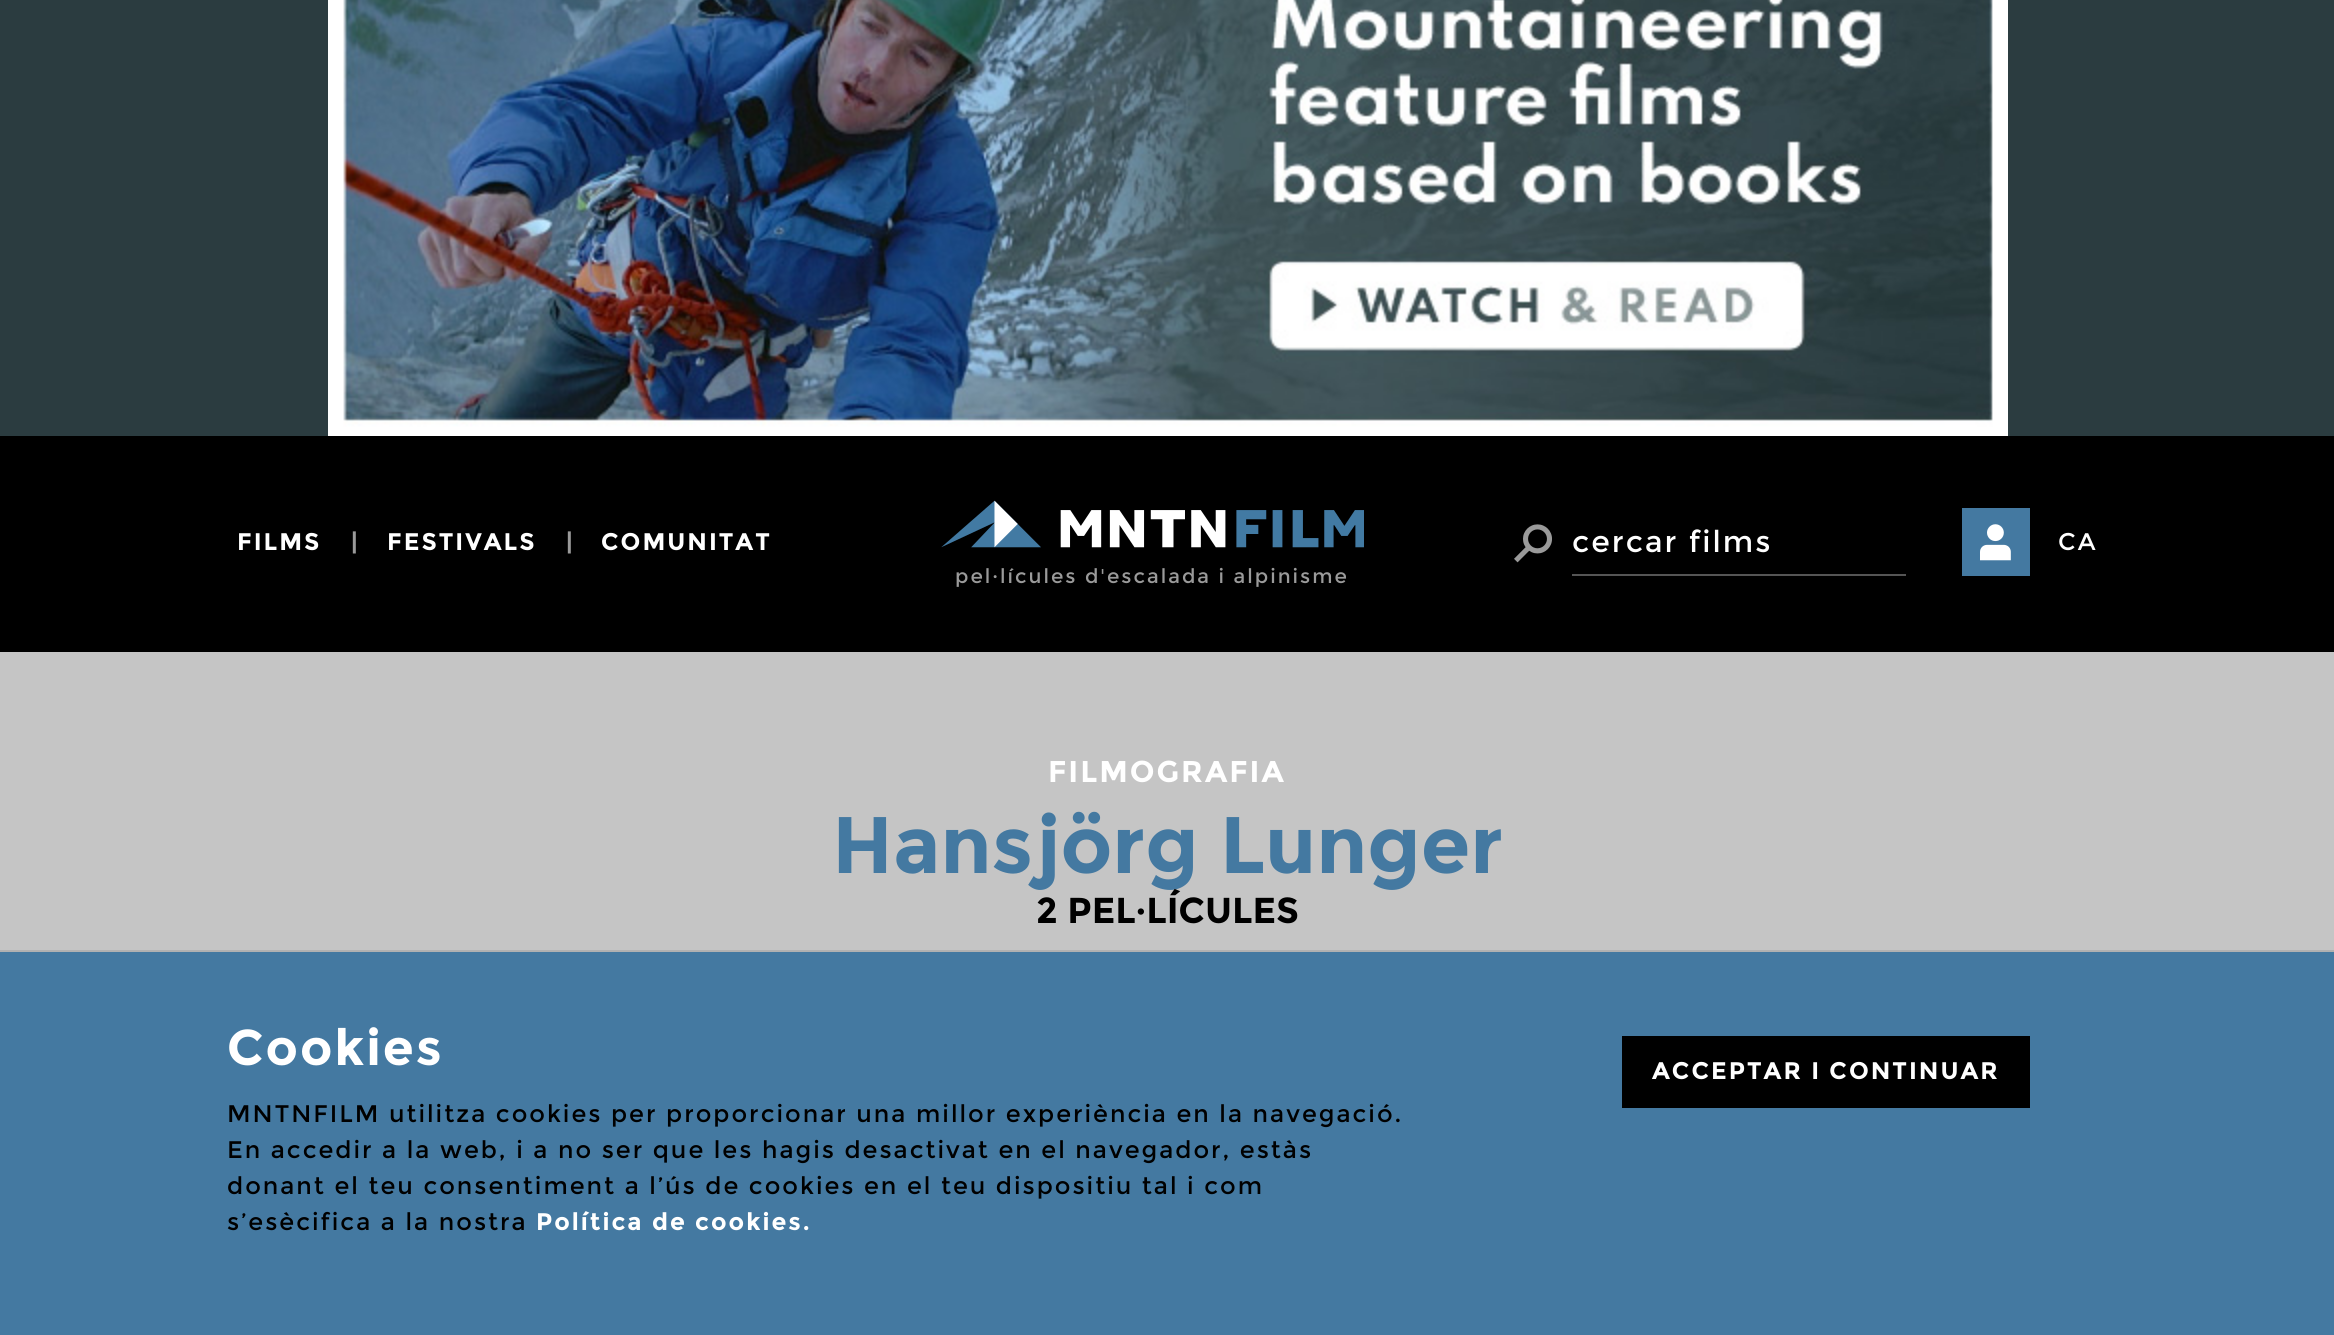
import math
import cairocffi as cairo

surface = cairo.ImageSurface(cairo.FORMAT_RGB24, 2334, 1335)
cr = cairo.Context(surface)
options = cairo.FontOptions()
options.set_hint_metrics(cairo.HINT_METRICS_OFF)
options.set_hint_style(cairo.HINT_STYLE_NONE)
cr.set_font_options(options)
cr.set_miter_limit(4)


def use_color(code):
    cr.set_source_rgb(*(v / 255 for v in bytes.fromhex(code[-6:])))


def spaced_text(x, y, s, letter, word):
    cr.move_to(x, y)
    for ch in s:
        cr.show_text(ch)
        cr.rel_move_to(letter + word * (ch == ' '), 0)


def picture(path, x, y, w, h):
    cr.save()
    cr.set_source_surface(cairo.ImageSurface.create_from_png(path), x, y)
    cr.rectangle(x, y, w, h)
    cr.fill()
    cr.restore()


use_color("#000000")
cr.paint()
use_color("#2b3c40")
cr.rectangle(0, 0, 2334, 436)
cr.fill()
picture("img1.png", 328, 0, 1680, 436)
cr.select_font_face("Montserrat", cairo.FONT_SLANT_NORMAL, cairo.FONT_WEIGHT_BOLD)
cr.set_font_size(24)
use_color("#ffffff")
spaced_text(237, 550, "FILMS", 2, 0)
use_color("#9a9a9a")
spaced_text(351, 550, "|", 2, 0)
use_color("#ffffff")
spaced_text(387, 550, "FESTIVALS", 2, 0)
use_color("#9a9a9a")
spaced_text(566, 550, "|", 2, 0)
use_color("#ffffff")
spaced_text(601, 550, "COMUNITAT", 2, 0)
picture("img2.png", 1514, 524, 38, 39)
use_color("#555555")
cr.rectangle(1572, 574, 334, 2)
cr.fill()
cr.select_font_face("Montserrat")
cr.set_font_size(30)
use_color("#ffffff")
spaced_text(1572, 552, "cercar films", 2, 0)
use_color("#4479a1")
cr.rectangle(1962, 508, 68, 68)
cr.fill()
picture("img3.png", 1980, 524, 31, 37)
cr.set_font_size(24)
use_color("#ffffff")
spaced_text(2058, 550, "CA", 2, 0)
picture("img4.png", 941, 500, 423, 48)
cr.set_font_size(20)
use_color("#9a9a9a")
spaced_text(955, 583, "pel·lícules d'escalada i alpinisme", 2, 0)
use_color("#c5c5c5")
cr.rectangle(0, 652, 2334, 298)
cr.fill()
cr.select_font_face("Montserrat", cairo.FONT_SLANT_NORMAL, cairo.FONT_WEIGHT_BOLD)
cr.set_font_size(30)
use_color("#ffffff")
spaced_text(1048, 782, "FILMOGRAFIA", 2, 0)
cr.set_font_size(80)
use_color("#4479a1")
cr.move_to(832, 873)
cr.show_text("Hansjörg Lunger")
cr.set_font_size(36)
use_color("#000000")
cr.move_to(1036, 923)
cr.show_text("2 PEL·LÍCULES")
use_color("#b1b1b1")
cr.rectangle(0, 950, 2334, 2)
cr.fill()
use_color("#4479a1")
cr.rectangle(0, 952, 2334, 383)
cr.fill()
cr.set_font_size(50)
use_color("#ffffff")
spaced_text(227, 1065, "Cookies", 2, 0)
cr.select_font_face("Montserrat")
cr.set_font_size(24)
use_color("#000000")
spaced_text(227, 1122, "MNTNFILM utilitza cookies per proporcionar una millor experiència en la navegació.", 2, 0)
spaced_text(227, 1158, "En accedir a la web, i a no ser que les hagis desactivat en el navegador, estàs", 2, 0)
spaced_text(227, 1194, "donant el teu consentiment a l’ús de cookies en el teu dispositiu tal i com", 2, 0)
spaced_text(227, 1230, "s’esècifica a la nostra", 2, 0)
cr.select_font_face("Montserrat", cairo.FONT_SLANT_NORMAL, cairo.FONT_WEIGHT_BOLD)
use_color("#ffffff")
spaced_text(536, 1230, "Política de cookies.", 2, 0)
use_color("#000000")
cr.rectangle(1622, 1036, 408, 72)
cr.fill()
use_color("#ffffff")
spaced_text(1652, 1079, "ACCEPTAR I CONTINUAR", 2, 0)
surface.write_to_png("result.png")
